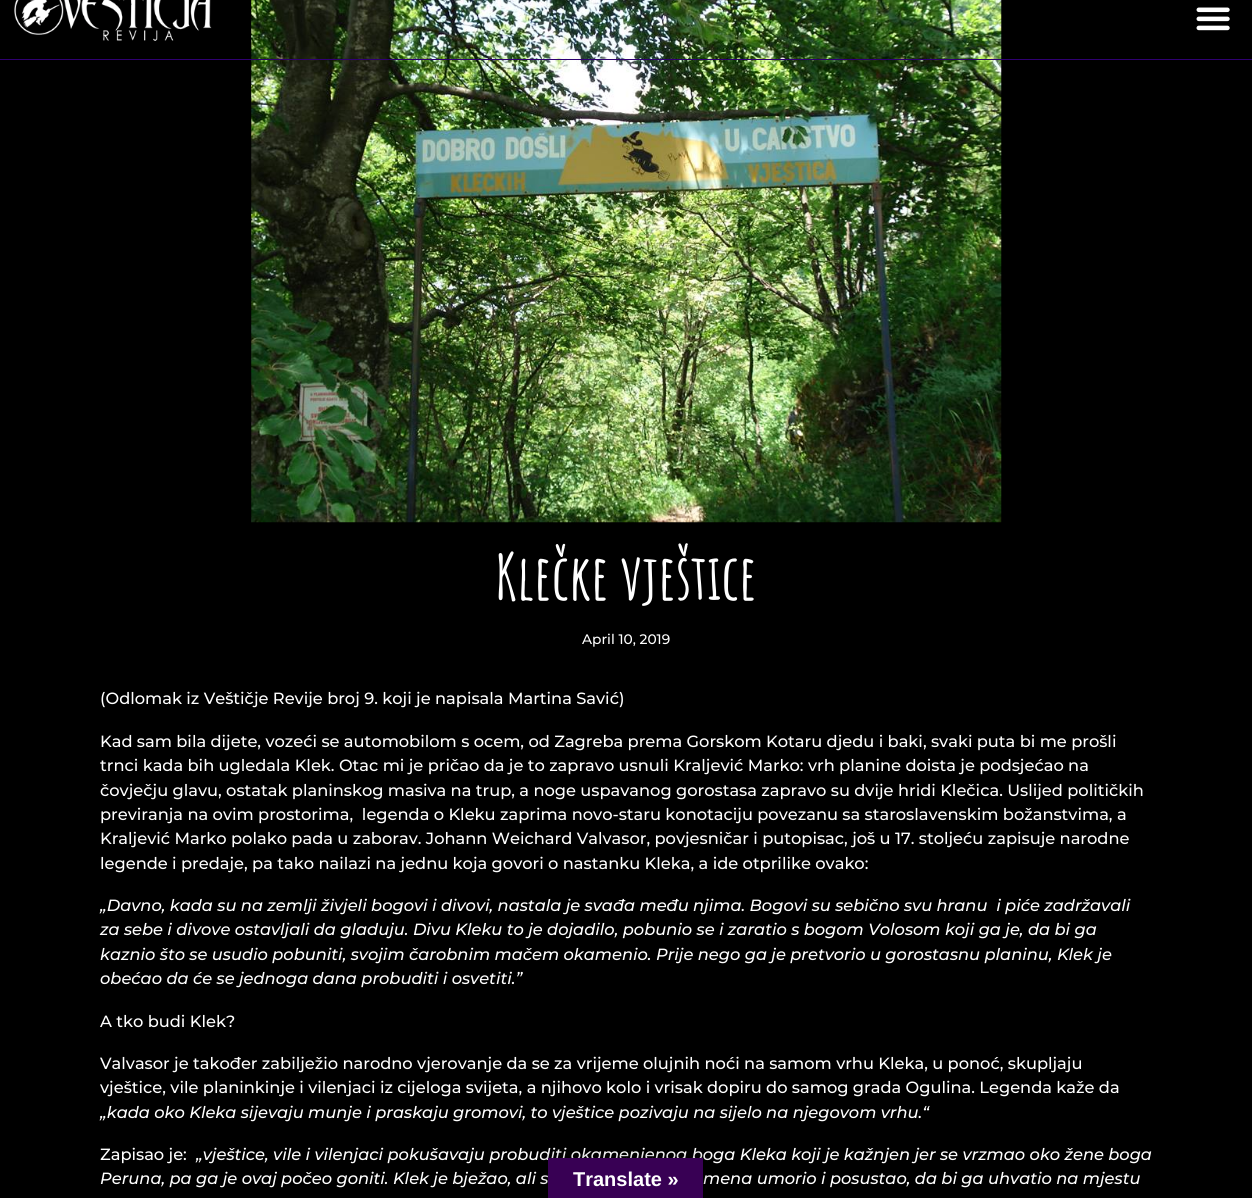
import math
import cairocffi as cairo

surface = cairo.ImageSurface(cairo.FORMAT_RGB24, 1252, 1198)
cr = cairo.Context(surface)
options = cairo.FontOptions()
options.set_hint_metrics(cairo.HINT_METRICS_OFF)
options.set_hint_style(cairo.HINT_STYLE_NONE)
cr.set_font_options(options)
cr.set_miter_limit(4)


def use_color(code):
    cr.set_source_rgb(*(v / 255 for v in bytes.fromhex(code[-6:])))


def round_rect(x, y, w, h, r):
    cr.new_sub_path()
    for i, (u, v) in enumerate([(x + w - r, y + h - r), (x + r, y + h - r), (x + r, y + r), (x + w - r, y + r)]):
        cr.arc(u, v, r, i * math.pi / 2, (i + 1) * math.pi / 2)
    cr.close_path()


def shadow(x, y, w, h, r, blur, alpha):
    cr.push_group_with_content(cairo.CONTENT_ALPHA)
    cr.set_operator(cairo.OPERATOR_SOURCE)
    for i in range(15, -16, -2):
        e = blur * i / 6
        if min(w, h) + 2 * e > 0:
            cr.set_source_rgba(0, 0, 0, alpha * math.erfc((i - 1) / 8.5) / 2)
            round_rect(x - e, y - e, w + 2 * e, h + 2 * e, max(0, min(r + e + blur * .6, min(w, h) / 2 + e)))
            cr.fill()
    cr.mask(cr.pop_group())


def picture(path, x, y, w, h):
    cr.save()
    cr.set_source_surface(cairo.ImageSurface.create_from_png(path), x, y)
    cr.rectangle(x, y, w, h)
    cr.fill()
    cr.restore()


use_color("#000000")
cr.paint()
picture("img3.png", 251, 0, 751, 523)
use_color("#2f0070")
cr.rectangle(0, 59, 1252, 1)
cr.fill()
picture("img1.png", 14, 0, 198, 41)
picture("img2.png", 1196, 7, 34, 24)
cr.select_font_face("Amatic SC", cairo.FONT_SLANT_NORMAL, cairo.FONT_WEIGHT_BOLD)
cr.set_font_size(62.5)
use_color("#ffffff")
cr.move_to(495, 600)
cr.show_text("Klečke vještice")
cr.select_font_face("Montserrat Medium")
cr.set_font_size(13.75)
cr.move_to(582, 644)
cr.show_text("April 10, 2019")
cr.set_font_size(16.25)
cr.move_to(100, 704)
cr.show_text("(Odlomak iz Veštičje Revije broj 9. koji je napisala Martina Savić)")
cr.move_to(100, 747)
cr.show_text("Kad sam bila dijete, vozeći se automobilom s ocem, od Zagreba prema Gorskom Kotaru djedu i baki, svaki puta bi me prošli")
cr.move_to(100, 771)
cr.show_text("trnci kada bih ugledala Klek. Otac mi je pričao da je to zapravo usnuli Kraljević Marko: vrh planine doista je podsjećao na")
cr.move_to(100, 796)
cr.show_text("čovječju glavu, ostatak planinskog masiva na trup, a noge uspavanog gorostasa zapravo su dvije hridi Klečica. Uslijed političkih")
cr.move_to(100, 820)
cr.show_text("previranja na ovim prostorima,  legenda o Kleku zaprima novo-staru konotaciju povezanu sa staroslavenskim božanstvima, a")
cr.move_to(100, 844)
cr.show_text("Kraljević Marko polako pada u zaborav. Johann Weichard Valvasor, povjesničar i putopisac, još u 17. stoljeću zapisuje narodne")
cr.move_to(100, 869)
cr.show_text("legende i predaje, pa tako nailazi na jednu koja govori o nastanku Kleka, a ide otprilike ovako:")
cr.select_font_face("Montserrat Medium", cairo.FONT_SLANT_ITALIC)
cr.move_to(100, 911)
cr.show_text("„Davno, kada su na zemlji živjeli bogovi i divovi, nastala je svađa među njima. Bogovi su sebično svu hranu  i piće zadržavali")
cr.move_to(100, 935)
cr.show_text("za sebe i divove ostavljali da gladuju. Divu Kleku to je dojadilo, pobunio se i zaratio s bogom Volosom koji ga je, da bi ga")
cr.move_to(100, 960)
cr.show_text("kaznio što se usudio pobuniti, svojim čarobnim mačem okamenio. Prije nego ga je pretvorio u gorostasnu planinu, Klek je")
cr.move_to(100, 984)
cr.show_text("obećao da će se jednoga dana probuditi i osvetiti.”")
cr.select_font_face("Montserrat Medium")
cr.move_to(100, 1027)
cr.show_text("A tko budi Klek?")
cr.move_to(100, 1069)
cr.show_text("Valvasor je također zabilježio narodno vjerovanje da se za vrijeme olujnih noći na samom vrhu Kleka, u ponoć, skupljaju")
cr.move_to(100, 1093)
cr.show_text("vještice, vile planinkinje i vilenjaci iz cijeloga svijeta, a njihovo kolo i vrisak dopiru do samog grada Ogulina. Legenda kaže da")
cr.select_font_face("Montserrat Medium", cairo.FONT_SLANT_ITALIC)
cr.move_to(100, 1118)
cr.show_text("„kada oko Kleka sijevaju munje i praskaju gromovi, to vještice pozivaju na sijelo na njegovom vrhu.“")
cr.select_font_face("Montserrat Medium")
cr.move_to(100, 1160)
cr.show_text("Zapisao je:")
cr.select_font_face("Montserrat Medium", cairo.FONT_SLANT_ITALIC)
cr.move_to(196, 1160)
cr.show_text("„vještice, vile i vilenjaci pokušavaju probuditi okamenjenog boga Kleka koji je kažnjen jer se vrzmao oko žene boga")
cr.move_to(100, 1184)
cr.show_text("Peruna, pa ga je ovaj počeo goniti. Klek je bježao, ali s")
cr.move_to(703, 1184)
cr.show_text("mena umorio i posustao, da bi ga uhvatio na mjestu")
use_color("#000000")
shadow(548, 1158, 155, 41, 0, 5.5, 0.3)
use_color("#380054")
cr.rectangle(548, 1158, 155, 40)
cr.fill()
cr.select_font_face("Liberation Sans", cairo.FONT_SLANT_NORMAL, cairo.FONT_WEIGHT_BOLD)
cr.set_font_size(20)
use_color("#ffffff")
cr.move_to(573, 1186)
cr.show_text("Translate »")
surface.write_to_png("result.png")
